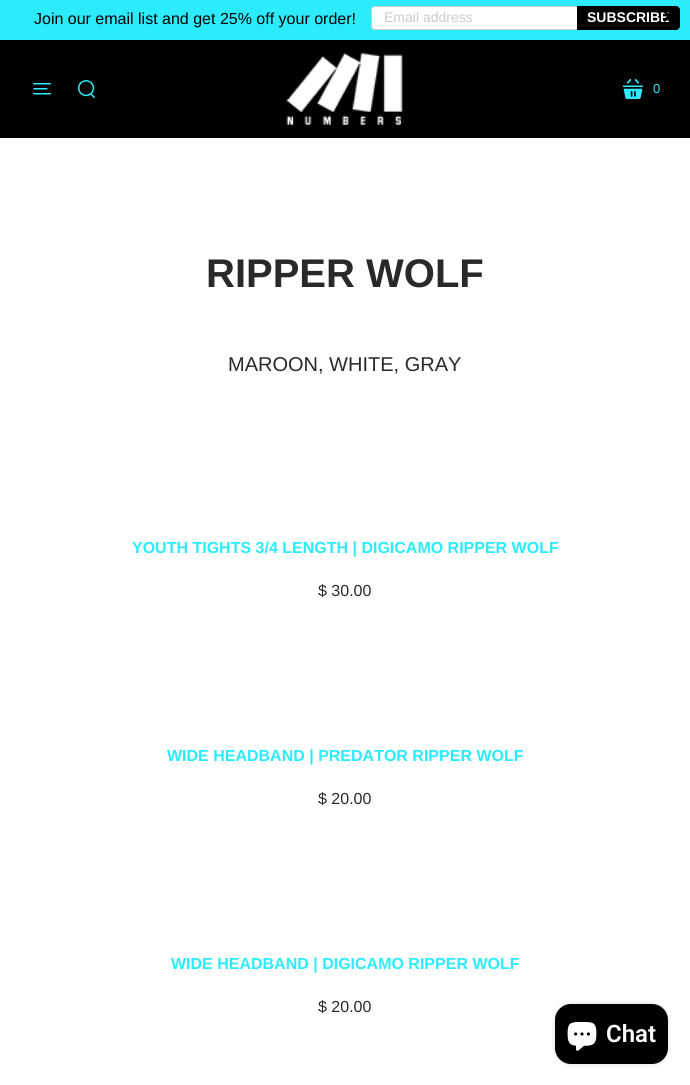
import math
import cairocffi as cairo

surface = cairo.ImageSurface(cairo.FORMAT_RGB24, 690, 1085)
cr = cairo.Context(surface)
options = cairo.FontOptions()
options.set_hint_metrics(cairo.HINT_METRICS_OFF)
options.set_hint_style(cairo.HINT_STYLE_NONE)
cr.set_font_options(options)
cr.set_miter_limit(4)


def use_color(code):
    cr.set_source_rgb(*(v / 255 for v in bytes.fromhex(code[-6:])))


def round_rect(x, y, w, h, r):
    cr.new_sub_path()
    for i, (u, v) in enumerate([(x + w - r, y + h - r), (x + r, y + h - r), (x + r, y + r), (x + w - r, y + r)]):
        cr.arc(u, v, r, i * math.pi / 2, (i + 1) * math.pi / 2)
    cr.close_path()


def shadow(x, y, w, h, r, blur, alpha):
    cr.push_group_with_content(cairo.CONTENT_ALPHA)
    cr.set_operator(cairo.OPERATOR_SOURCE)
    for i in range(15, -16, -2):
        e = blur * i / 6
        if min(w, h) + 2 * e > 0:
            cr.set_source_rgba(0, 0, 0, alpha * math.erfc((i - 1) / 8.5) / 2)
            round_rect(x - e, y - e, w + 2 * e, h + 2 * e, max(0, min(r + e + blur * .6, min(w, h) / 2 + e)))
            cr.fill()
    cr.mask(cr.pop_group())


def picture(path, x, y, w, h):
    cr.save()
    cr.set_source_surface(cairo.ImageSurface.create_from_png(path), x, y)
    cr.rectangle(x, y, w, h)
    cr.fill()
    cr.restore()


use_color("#ffffff")
cr.paint()
use_color("#2bebfc")
cr.rectangle(0, 0, 690, 40)
cr.fill()
cr.select_font_face("Liberation Sans")
cr.set_font_size(16)
use_color("#000000")
cr.move_to(34, 24)
cr.show_text("Join our email list and get 25% off your order!")
use_color("#ffffff")
cr.new_path()
cr.move_to(375, 6)
cr.line_to(577, 6)
cr.line_to(577, 30)
cr.line_to(375, 30)
cr.curve_to(373, 30, 371, 28, 371, 26)
cr.line_to(371, 10)
cr.curve_to(371, 8, 373, 6, 375, 6)
cr.close_path()
cr.fill()
cr.set_source_rgba(0, 0, 0, 0.2)
cr.set_fill_rule(cairo.FILL_RULE_EVEN_ODD)
cr.new_path()
cr.move_to(375, 6)
cr.line_to(577, 6)
cr.line_to(577, 30)
cr.line_to(375, 30)
cr.curve_to(373, 30, 371, 28, 371, 26)
cr.line_to(371, 10)
cr.curve_to(371, 8, 373, 6, 375, 6)
cr.close_path()
cr.move_to(375, 7)
cr.line_to(577, 7)
cr.line_to(577, 29)
cr.line_to(375, 29)
cr.curve_to(373, 29, 372, 28, 372, 26)
cr.line_to(372, 10)
cr.curve_to(372, 8, 373, 7, 375, 7)
cr.close_path()
cr.fill()
cr.set_font_size(14)
use_color("#cccccc")
cr.move_to(384, 22)
cr.show_text("Email address")
use_color("#000000")
cr.new_path()
cr.move_to(577, 6)
cr.line_to(676, 6)
cr.curve_to(678, 6, 680, 8, 680, 10)
cr.line_to(680, 26)
cr.curve_to(680, 28, 678, 30, 676, 30)
cr.line_to(577, 30)
cr.close_path()
cr.fill()
cr.set_source_rgba(0, 0, 0, 0.2)
cr.new_path()
cr.move_to(577, 6)
cr.line_to(676, 6)
cr.curve_to(678, 6, 680, 8, 680, 10)
cr.line_to(680, 26)
cr.curve_to(680, 28, 678, 30, 676, 30)
cr.line_to(577, 30)
cr.close_path()
cr.move_to(577, 7)
cr.line_to(676, 7)
cr.curve_to(678, 7, 679, 8, 679, 10)
cr.line_to(679, 26)
cr.curve_to(679, 28, 678, 29, 676, 29)
cr.line_to(577, 29)
cr.close_path()
cr.fill()
cr.select_font_face("Liberation Sans", cairo.FONT_SLANT_NORMAL, cairo.FONT_WEIGHT_BOLD)
use_color("#ffffff")
cr.move_to(587, 22)
cr.show_text("SUBSCRIBE")
picture("img1.png", 663, 12, 6, 10)
use_color("#000000")
cr.rectangle(0, 40, 690, 98)
cr.fill()
picture("img2.png", 33, 83, 18, 12)
picture("img3.png", 33, 88, 15, 2)
picture("img4.png", 78, 80, 17, 18)
picture("img5.png", 286, 53, 117, 72)
picture("img6.png", 623, 79, 20, 20)
cr.select_font_face("Liberation Sans")
cr.set_font_size(13)
use_color("#2bebfc")
cr.move_to(653, 93)
cr.show_text("0")
cr.select_font_face("Liberation Sans", cairo.FONT_SLANT_NORMAL, cairo.FONT_WEIGHT_BOLD)
cr.set_font_size(40)
use_color("#292929")
cr.move_to(206, 287)
cr.show_text("RIPPER WOLF")
cr.select_font_face("Liberation Sans")
cr.set_font_size(20)
cr.move_to(228, 371)
cr.show_text("MAROON, WHITE, GRAY")
cr.select_font_face("Liberation Sans", cairo.FONT_SLANT_NORMAL, cairo.FONT_WEIGHT_BOLD)
cr.set_font_size(16)
use_color("#2bebfc")
cr.move_to(132, 553)
cr.show_text("YOUTH TIGHTS 3/4 LENGTH | DIGICAMO RIPPER WOLF")
cr.select_font_face("Liberation Sans")
use_color("#292929")
cr.move_to(318, 596)
cr.show_text("$ 30.00")
cr.select_font_face("Liberation Sans", cairo.FONT_SLANT_NORMAL, cairo.FONT_WEIGHT_BOLD)
use_color("#2bebfc")
cr.move_to(167, 761)
cr.show_text("WIDE HEADBAND | PREDATOR RIPPER WOLF")
cr.select_font_face("Liberation Sans")
use_color("#292929")
cr.move_to(318, 804)
cr.show_text("$ 20.00")
cr.select_font_face("Liberation Sans", cairo.FONT_SLANT_NORMAL, cairo.FONT_WEIGHT_BOLD)
use_color("#2bebfc")
cr.move_to(171, 969)
cr.show_text("WIDE HEADBAND | DIGICAMO RIPPER WOLF")
cr.select_font_face("Liberation Sans")
use_color("#292929")
cr.move_to(318, 1012)
cr.show_text("$ 20.00")
use_color("#000000")
shadow(555, 1004, 113, 60, 16, 2.5, 0.15)
use_color("#000000")
round_rect(555, 1004, 113, 60, 16)
cr.fill()
picture("img7.png", 567, 1022, 30, 29)
cr.select_font_face("Roboto SemiBold")
cr.set_font_size(24)
use_color("#ffffff")
cr.move_to(606, 1042)
cr.show_text("Chat")
surface.write_to_png("result.png")
